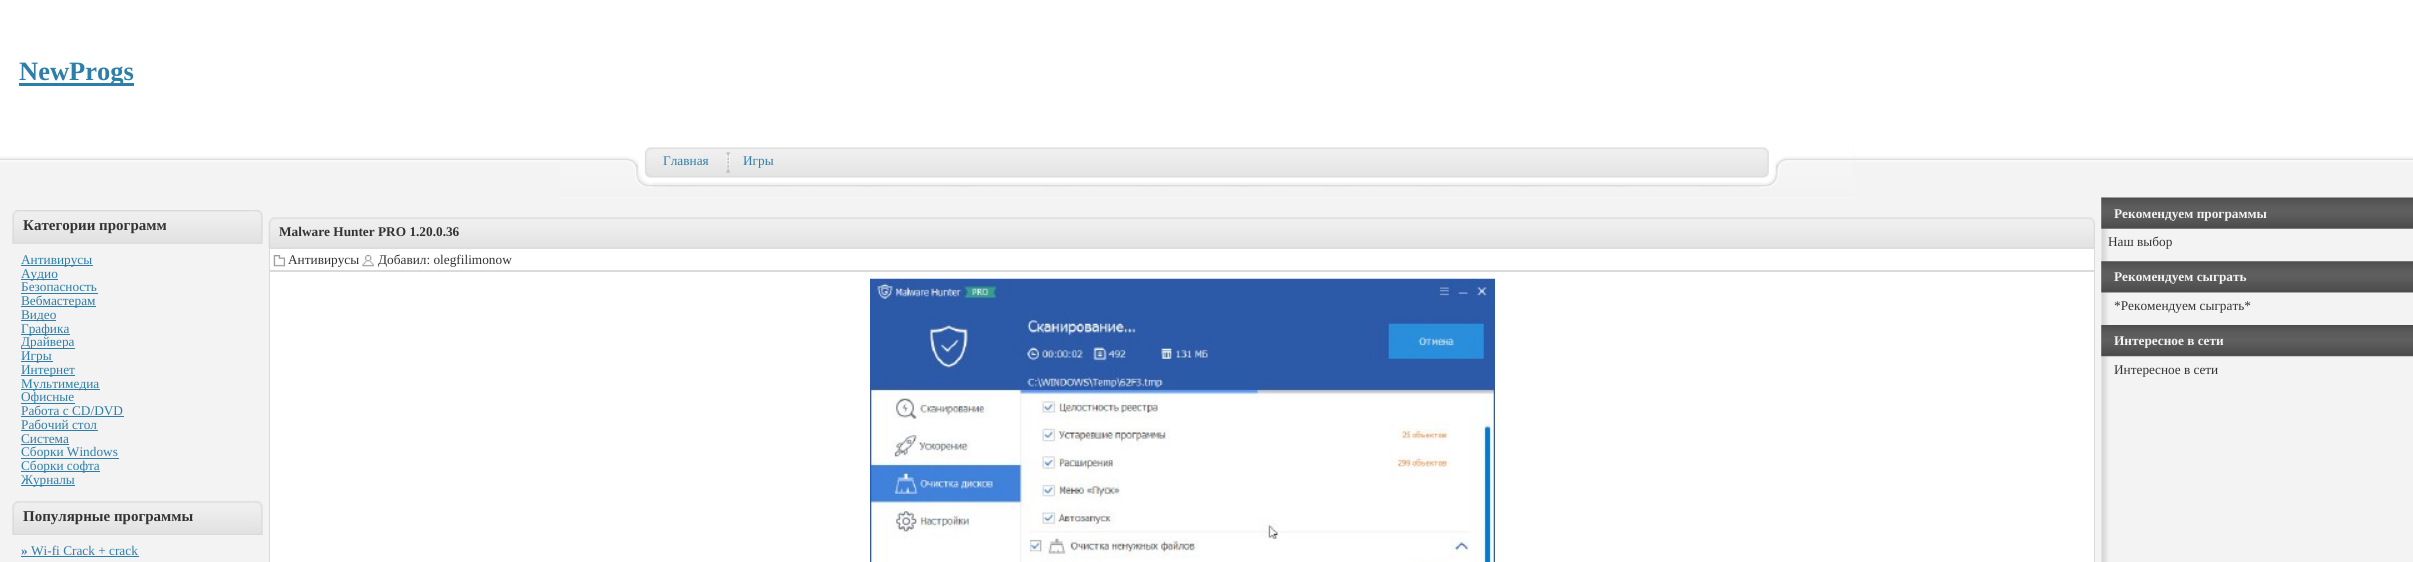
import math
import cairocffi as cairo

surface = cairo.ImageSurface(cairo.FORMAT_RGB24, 2413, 562)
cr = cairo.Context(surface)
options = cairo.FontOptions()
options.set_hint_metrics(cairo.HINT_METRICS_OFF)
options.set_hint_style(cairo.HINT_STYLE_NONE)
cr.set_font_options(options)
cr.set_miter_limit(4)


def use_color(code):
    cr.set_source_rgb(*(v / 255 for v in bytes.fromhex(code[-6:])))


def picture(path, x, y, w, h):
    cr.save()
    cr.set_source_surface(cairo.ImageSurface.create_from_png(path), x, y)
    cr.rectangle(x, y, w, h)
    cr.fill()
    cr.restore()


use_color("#f3f3f3")
cr.paint()
use_color("#ffffff")
cr.rectangle(0, 0, 2413, 144)
cr.fill()
use_color("#2d7ea8")
cr.rectangle(19, 83, 115, 3)
cr.fill()
cr.select_font_face("Liberation Serif", cairo.FONT_SLANT_NORMAL, cairo.FONT_WEIGHT_BOLD)
cr.set_font_size(26.5)
cr.move_to(19, 80)
cr.show_text("NewProgs")
picture("img1.png", 0, 144, 2413, 18)
use_color("#f7f7f7")
cr.rectangle(560, 144, 1294, 54)
cr.fill()
picture("img2.png", 560, 144, 1294, 53)
picture("img3.png", 560, 147, 93, 41)
picture("img4.png", 1760, 147, 94, 41)
cr.select_font_face("Liberation Serif")
cr.set_font_size(13.3)
use_color("#2d7ea8")
cr.move_to(663, 165)
cr.show_text("Главная")
picture("img5.png", 726, 152, 4, 21)
cr.move_to(743, 165)
cr.show_text("Игры")
picture("img6.png", 12, 213, 251, 31)
picture("img7.png", 12, 210, 11, 34)
picture("img8.png", 22, 210, 231, 34)
cr.select_font_face("Liberation Serif", cairo.FONT_SLANT_NORMAL, cairo.FONT_WEIGHT_BOLD)
cr.set_font_size(15)
use_color("#333333")
cr.move_to(23, 230)
cr.show_text("Категории программ")
picture("img9.png", 252, 210, 11, 34)
use_color("#2d7ea8")
cr.rectangle(21, 265, 72, 1)
cr.fill()
cr.select_font_face("Liberation Serif")
cr.set_font_size(13.3)
cr.move_to(21, 264)
cr.show_text("Антивирусы")
cr.rectangle(21, 279, 37, 1)
cr.fill()
cr.move_to(21, 278)
cr.show_text("Аудио")
cr.move_to(21, 291)
cr.show_text("Безопасность")
cr.rectangle(21, 293, 77, 1)
cr.fill()
cr.rectangle(21, 306, 75, 1)
cr.fill()
cr.move_to(21, 305)
cr.show_text("Вебмастерам")
cr.rectangle(21, 320, 35, 1)
cr.fill()
cr.move_to(21, 319)
cr.show_text("Видео")
cr.rectangle(21, 334, 49, 1)
cr.fill()
cr.move_to(21, 333)
cr.show_text("Графика")
cr.rectangle(21, 348, 54, 1)
cr.fill()
cr.move_to(21, 346)
cr.show_text("Драйвера")
cr.rectangle(21, 361, 32, 1)
cr.fill()
cr.move_to(21, 360)
cr.show_text("Игры")
cr.rectangle(21, 375, 54, 1)
cr.fill()
cr.move_to(21, 374)
cr.show_text("Интернет")
cr.rectangle(21, 389, 79, 1)
cr.fill()
cr.move_to(21, 388)
cr.show_text("Мультимедиа")
cr.rectangle(21, 403, 54, 1)
cr.fill()
cr.move_to(21, 401)
cr.show_text("Офисные")
cr.move_to(21, 415)
cr.show_text("Работа с CD/DVD")
cr.rectangle(21, 416, 103, 1)
cr.fill()
cr.move_to(21, 429)
cr.show_text("Рабочий стол")
cr.rectangle(21, 430, 77, 1)
cr.fill()
cr.move_to(21, 443)
cr.show_text("Система")
cr.rectangle(21, 444, 48, 1)
cr.fill()
cr.rectangle(21, 458, 98, 1)
cr.fill()
cr.move_to(21, 456)
cr.show_text("Сборки Windows")
cr.rectangle(21, 471, 79, 1)
cr.fill()
cr.move_to(21, 470)
cr.show_text("Сборки софта")
cr.rectangle(21, 485, 54, 1)
cr.fill()
cr.move_to(21, 484)
cr.show_text("Журналы")
picture("img10.png", 12, 504, 251, 31)
picture("img11.png", 12, 501, 11, 34)
picture("img12.png", 22, 501, 231, 34)
cr.select_font_face("Liberation Serif", cairo.FONT_SLANT_NORMAL, cairo.FONT_WEIGHT_BOLD)
cr.set_font_size(15)
use_color("#333333")
cr.move_to(23, 521)
cr.show_text("Популярные программы")
picture("img13.png", 252, 501, 11, 34)
cr.set_font_size(13.3)
use_color("#2d7ea8")
cr.move_to(21, 555)
cr.show_text("»")
cr.rectangle(21, 556, 118, 1)
cr.fill()
cr.select_font_face("Liberation Serif")
cr.move_to(31, 555)
cr.show_text("Wi-fi Crack + crack")
picture("img14.png", 268, 221, 1827, 28)
picture("img15.png", 268, 217, 11, 32)
picture("img16.png", 279, 217, 1806, 32)
cr.select_font_face("Liberation Serif", cairo.FONT_SLANT_NORMAL, cairo.FONT_WEIGHT_BOLD)
use_color("#333333")
cr.move_to(279, 236)
cr.show_text("Malware Hunter PRO 1.20.0.36")
picture("img17.png", 2085, 217, 10, 32)
use_color("#ffffff")
cr.rectangle(270, 249, 1824, 21)
cr.fill()
use_color("#dadada")
cr.rectangle(2094, 249, 1, 22)
cr.fill()
cr.rectangle(269, 270, 1826, 1)
cr.fill()
cr.rectangle(269, 249, 1, 22)
cr.fill()
picture("img18.png", 273, 255, 12, 12)
cr.select_font_face("Liberation Serif")
use_color("#333333")
cr.move_to(288, 264)
cr.show_text("Антивирусы")
picture("img19.png", 362, 255, 12, 12)
cr.move_to(378, 264)
cr.show_text("Добавил: olegfilimonow")
use_color("#ffffff")
cr.rectangle(269.5, 271.5, 1825, 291)
cr.fill_preserve()
use_color("#dadada")
cr.set_line_width(1)
cr.stroke()
picture("img20.png", 870, 278, 625, 284)
picture("img21.png", 2101, 197, 8, 365)
picture("img22.png", 2101, 197, 312, 32)
cr.select_font_face("Liberation Serif", cairo.FONT_SLANT_NORMAL, cairo.FONT_WEIGHT_BOLD)
use_color("#f3f3f3")
cr.move_to(2114, 218)
cr.show_text("Рекомендуем программы")
cr.select_font_face("Liberation Serif")
use_color("#333333")
cr.move_to(2108, 246)
cr.show_text("Наш выбор")
picture("img23.png", 2101, 261, 312, 32)
cr.select_font_face("Liberation Serif", cairo.FONT_SLANT_NORMAL, cairo.FONT_WEIGHT_BOLD)
use_color("#f3f3f3")
cr.move_to(2114, 281)
cr.show_text("Рекомендуем сыграть")
cr.select_font_face("Liberation Serif")
use_color("#333333")
cr.move_to(2114, 310)
cr.show_text("*Рекомендуем сыграть*")
picture("img24.png", 2101, 325, 312, 32)
cr.select_font_face("Liberation Serif", cairo.FONT_SLANT_NORMAL, cairo.FONT_WEIGHT_BOLD)
use_color("#f3f3f3")
cr.move_to(2114, 345)
cr.show_text("Интересное в сети")
cr.select_font_face("Liberation Serif")
use_color("#333333")
cr.move_to(2114, 374)
cr.show_text("Интересное в сети")
surface.write_to_png("result.png")
